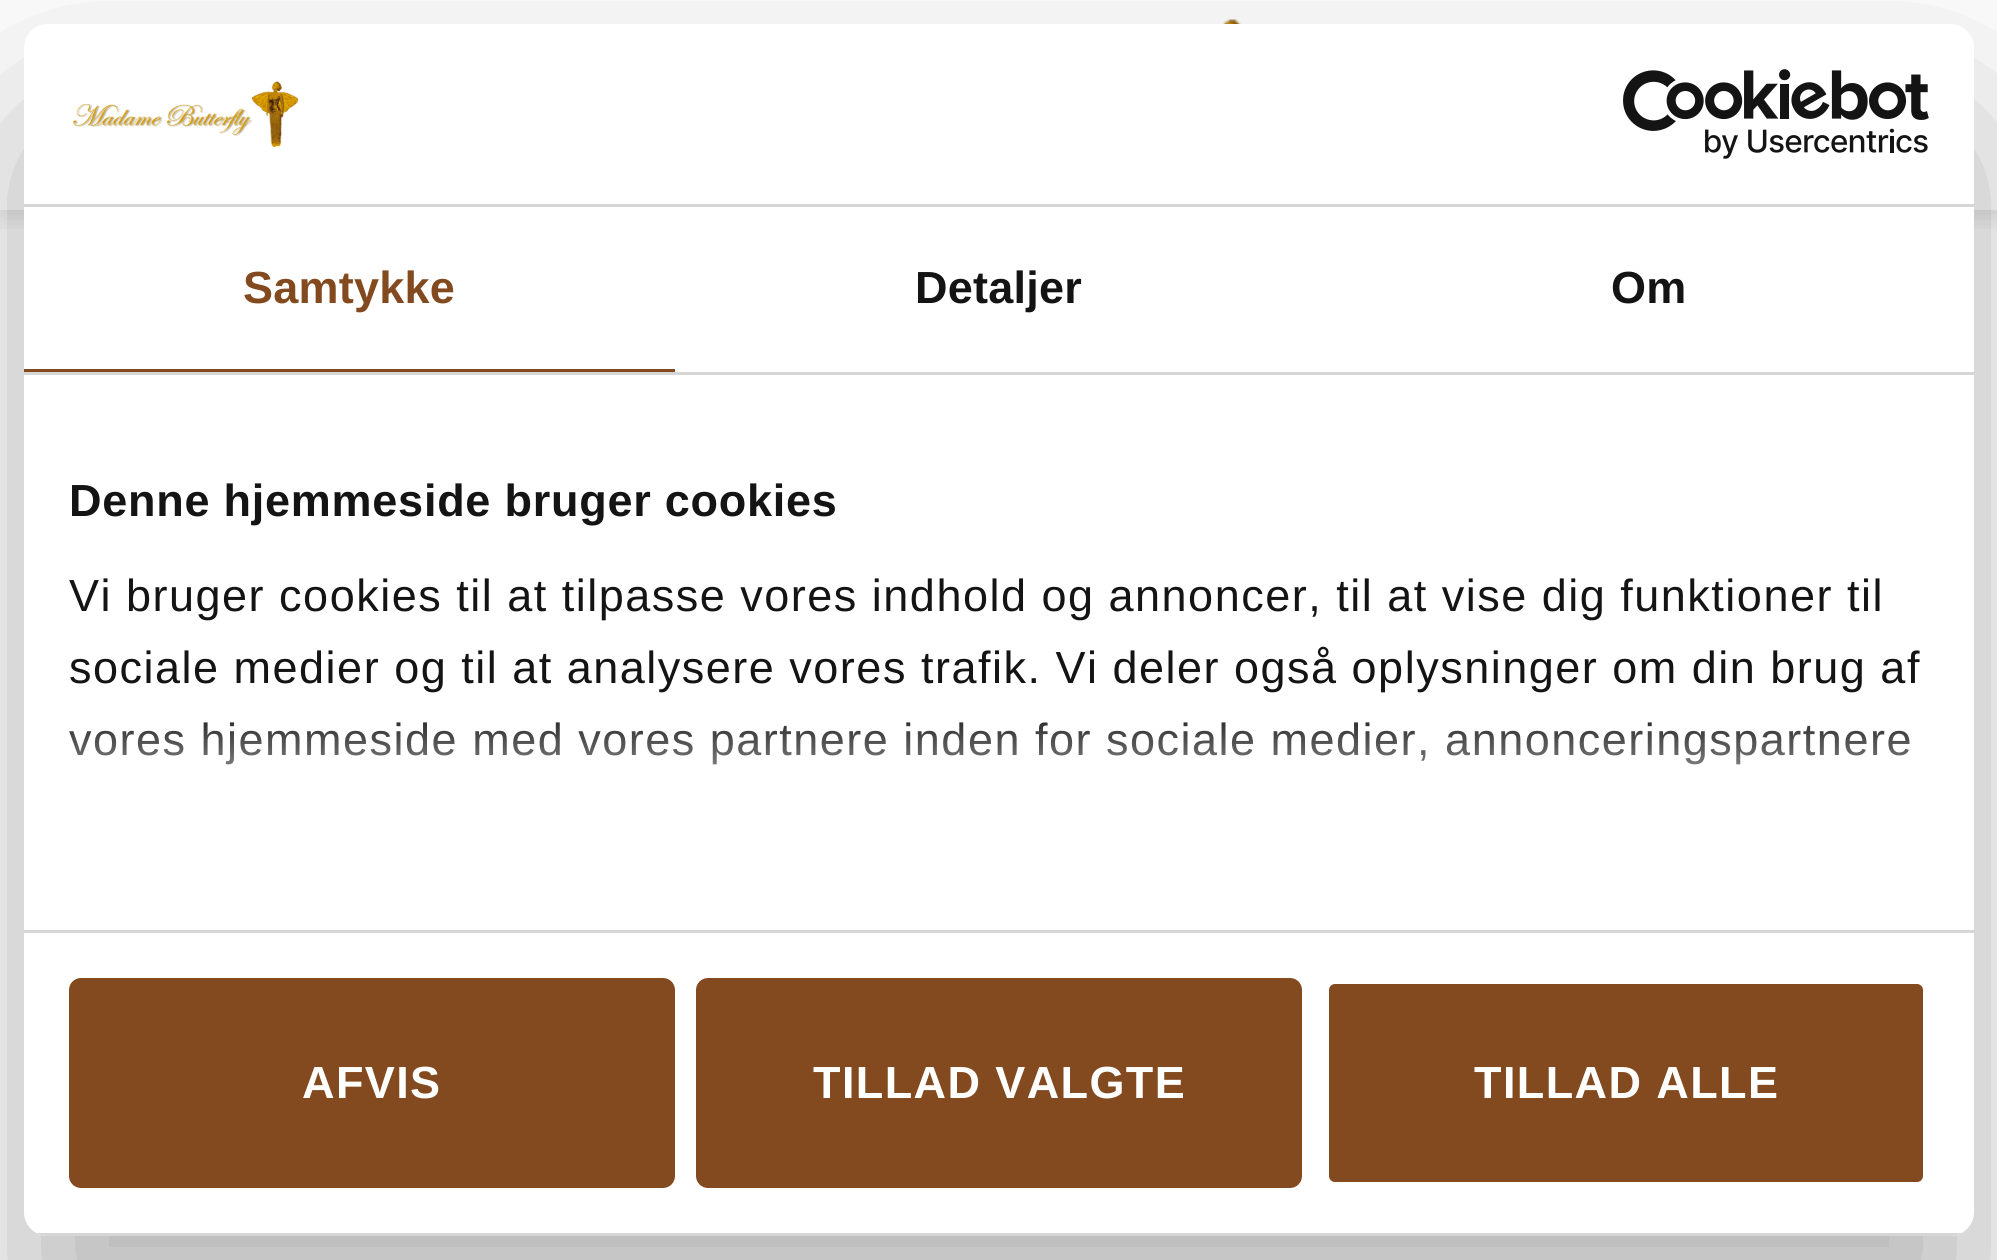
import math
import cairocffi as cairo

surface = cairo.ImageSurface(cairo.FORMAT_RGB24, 1997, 1260)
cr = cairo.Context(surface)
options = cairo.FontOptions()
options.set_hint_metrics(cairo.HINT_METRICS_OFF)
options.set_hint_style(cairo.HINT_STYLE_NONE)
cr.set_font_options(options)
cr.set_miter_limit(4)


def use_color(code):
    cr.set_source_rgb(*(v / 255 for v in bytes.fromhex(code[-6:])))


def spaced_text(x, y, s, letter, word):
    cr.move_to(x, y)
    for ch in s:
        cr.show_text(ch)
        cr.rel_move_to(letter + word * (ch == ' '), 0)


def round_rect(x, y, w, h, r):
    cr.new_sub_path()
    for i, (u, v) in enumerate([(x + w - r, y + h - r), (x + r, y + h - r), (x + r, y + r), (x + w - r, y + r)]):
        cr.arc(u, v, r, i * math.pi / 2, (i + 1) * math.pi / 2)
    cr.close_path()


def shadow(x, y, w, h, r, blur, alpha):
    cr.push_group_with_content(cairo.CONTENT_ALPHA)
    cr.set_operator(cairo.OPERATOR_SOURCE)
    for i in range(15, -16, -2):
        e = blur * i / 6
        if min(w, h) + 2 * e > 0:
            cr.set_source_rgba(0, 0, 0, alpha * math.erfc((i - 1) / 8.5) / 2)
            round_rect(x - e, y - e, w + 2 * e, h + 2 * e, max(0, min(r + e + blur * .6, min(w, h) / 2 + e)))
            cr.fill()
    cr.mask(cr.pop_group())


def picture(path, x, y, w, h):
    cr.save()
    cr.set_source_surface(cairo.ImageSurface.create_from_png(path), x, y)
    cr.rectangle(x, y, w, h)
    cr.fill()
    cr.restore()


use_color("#ffffff")
cr.paint()
cr.save()
cr.rectangle(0, 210, 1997, 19)
cr.clip()
use_color("#000000")
shadow(3, 3, 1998, 210, 0, 15, 0.15)
cr.restore()
picture("img1.png", 1223, 19, 18, 5)
use_color("#000000")
shadow(24, 120, 1950, 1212, 24, 102, 0.3)
use_color("#ffffff")
round_rect(24, 24, 1950, 1212, 24)
cr.fill()
use_color("#d6d6d6")
cr.rectangle(24, 204, 1950, 3)
cr.fill()
picture("img2.png", 73, 81, 226, 66)
picture("img3.png", 1623, 69, 306, 90)
cr.rectangle(24, 372, 1950, 3)
cr.fill()
use_color("#834a1f")
cr.rectangle(24, 369, 651, 3)
cr.fill()
cr.select_font_face("Liberation Sans", cairo.FONT_SLANT_NORMAL, cairo.FONT_WEIGHT_BOLD)
cr.set_font_size(45)
spaced_text(243, 303, "Samtykke", 0.25, 0)
use_color("#141414")
spaced_text(915, 303, "Detaljer", 0.25, 0)
spaced_text(1611, 303, "Om", 0.25, 0)
use_color("#d6d6d6")
cr.rectangle(24, 930, 1950, 3)
cr.fill()
use_color("#141414")
spaced_text(69, 516, "Denne hjemmeside bruger cookies", 0.75, 0)
cr.select_font_face("Liberation Sans")
spaced_text(69, 611, "Vi bruger cookies til at tilpasse vores indhold og annoncer, til at vise dig funktioner til", 1.5, 0)
spaced_text(69, 683, "sociale medier og til at analysere vores trafik. Vi deler også oplysninger om din brug af", 1.5, 0)
spaced_text(69, 755, "vores hjemmeside med vores partnere inden for sociale medier, annonceringspartnere", 1.5, 0)
gradient = cairo.LinearGradient(980, 930, 980, 705)
gradient.add_color_stop_rgba(0, 1, 1, 1, 1)
gradient.add_color_stop_rgba(0.5, 1, 1, 1, 0.8)
gradient.add_color_stop_rgba(1, 1, 1, 1, 0)
cr.set_source(gradient)
cr.rectangle(69, 722, 1841, 43)
cr.fill()
cr.save()
round_rect(24, 24, 1950, 1212, 24)
cr.clip()
use_color("#d6d6d6")
cr.rectangle(36, 1233, 1926, 3)
cr.fill()
cr.restore()
use_color("#844a1f")
round_rect(72, 981, 600, 204, 9)
cr.fill_preserve()
use_color("#834a1f")
cr.set_line_width(6)
cr.stroke()
cr.select_font_face("Liberation Sans", cairo.FONT_SLANT_NORMAL, cairo.FONT_WEIGHT_BOLD)
use_color("#ffffff")
spaced_text(302, 1098, "AFVIS", 1.4, 0)
use_color("#834a1f")
round_rect(699, 981, 600, 204, 9)
cr.fill_preserve()
cr.stroke()
use_color("#ffffff")
spaced_text(813, 1098, "TILLAD VALGTE", 1.4, 0)
use_color("#834a1f")
round_rect(1326, 981, 600, 204, 9)
cr.fill_preserve()
use_color("#ffffff")
cr.stroke()
spaced_text(1474, 1098, "TILLAD ALLE", 1.4, 0)
surface.write_to_png("result.png")
